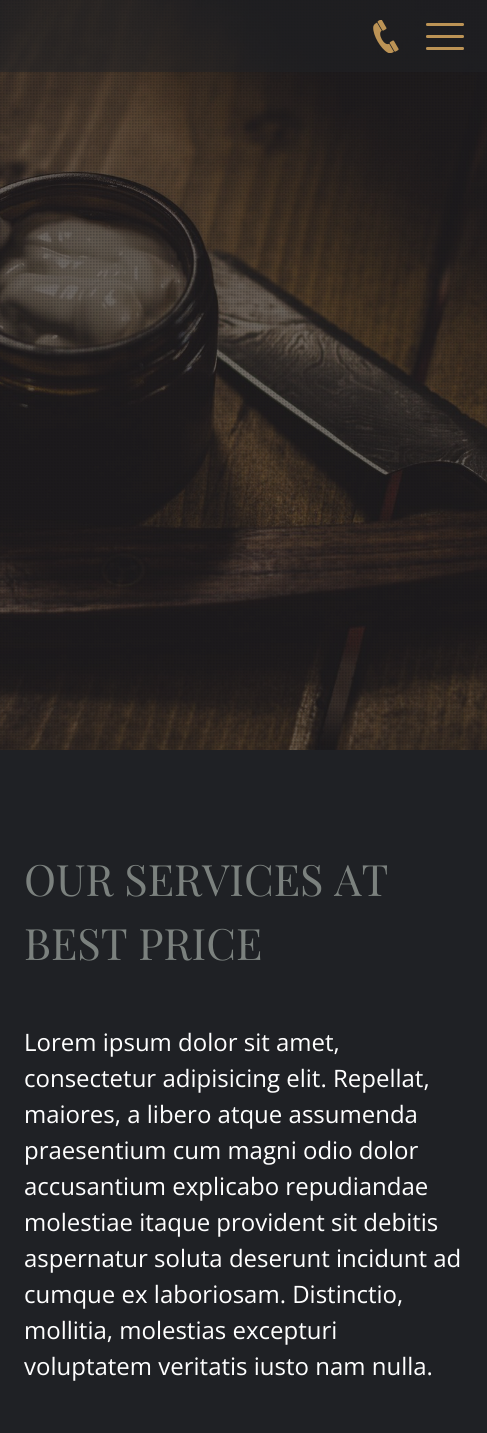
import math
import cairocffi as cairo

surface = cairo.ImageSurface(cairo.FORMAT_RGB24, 487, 1433)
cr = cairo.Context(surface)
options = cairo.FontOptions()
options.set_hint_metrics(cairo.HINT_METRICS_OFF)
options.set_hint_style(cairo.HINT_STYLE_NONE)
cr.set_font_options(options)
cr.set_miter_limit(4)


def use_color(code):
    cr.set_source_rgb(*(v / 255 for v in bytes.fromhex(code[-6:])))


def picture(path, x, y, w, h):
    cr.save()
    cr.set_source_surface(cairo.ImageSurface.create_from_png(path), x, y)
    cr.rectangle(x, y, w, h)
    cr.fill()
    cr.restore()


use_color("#1f2125")
cr.paint()
picture("img1.png", 0, 0, 487, 750)
picture("img2.png", 0, 0, 487, 750)
cr.set_source_rgba(0.122, 0.129, 0.145, 0.55)
cr.rectangle(0, 0, 487, 72)
cr.fill()
picture("img3.png", 373, 20, 26, 33)
use_color("#bc9355")
cr.new_path()
cr.move_to(427.5, 23)
cr.line_to(446, 23)
cr.line_to(446, 26)
cr.line_to(427.5, 26)
cr.curve_to(426.5, 26, 426, 25.5, 426, 24.5)
cr.curve_to(426, 23.5, 426.5, 23, 427.5, 23)
cr.close_path()
cr.fill()
cr.new_path()
cr.move_to(446, 23)
cr.line_to(462.5, 23)
cr.curve_to(463.5, 23, 464, 23.5, 464, 24.5)
cr.curve_to(464, 25.5, 463.5, 26, 462.5, 26)
cr.line_to(446, 26)
cr.close_path()
cr.fill()
cr.new_path()
cr.move_to(427.5, 35)
cr.line_to(446, 35)
cr.line_to(446, 38)
cr.line_to(427.5, 38)
cr.curve_to(426.5, 38, 426, 37.5, 426, 36.5)
cr.curve_to(426, 35.5, 426.5, 35, 427.5, 35)
cr.close_path()
cr.fill()
cr.new_path()
cr.move_to(446, 35)
cr.line_to(462.5, 35)
cr.curve_to(463.5, 35, 464, 35.5, 464, 36.5)
cr.curve_to(464, 37.5, 463.5, 38, 462.5, 38)
cr.line_to(446, 38)
cr.close_path()
cr.fill()
cr.new_path()
cr.move_to(427.5, 47)
cr.line_to(446, 47)
cr.line_to(446, 50)
cr.line_to(427.5, 50)
cr.curve_to(426.5, 50, 426, 49.5, 426, 48.5)
cr.curve_to(426, 47.5, 426.5, 47, 427.5, 47)
cr.close_path()
cr.fill()
cr.new_path()
cr.move_to(446, 47)
cr.line_to(462.5, 47)
cr.curve_to(463.5, 47, 464, 47.5, 464, 48.5)
cr.curve_to(464, 49.5, 463.5, 50, 462.5, 50)
cr.line_to(446, 50)
cr.close_path()
cr.fill()
cr.select_font_face("Playfair Display")
cr.set_font_size(43.25)
use_color("#7b817e")
cr.move_to(24, 896)
cr.show_text("OUR SERVICES AT")
cr.move_to(24, 960)
cr.show_text("BEST PRICE")
cr.select_font_face("Open Sans")
cr.set_font_size(24)
use_color("#ffffff")
cr.move_to(24, 1051)
cr.show_text("Lorem ipsum dolor sit amet,")
cr.move_to(24, 1087)
cr.show_text("consectetur adipisicing elit. Repellat,")
cr.move_to(24, 1123)
cr.show_text("maiores, a libero atque assumenda")
cr.move_to(24, 1159)
cr.show_text("praesentium cum magni odio dolor")
cr.move_to(24, 1195)
cr.show_text("accusantium explicabo repudiandae")
cr.move_to(24, 1231)
cr.show_text("molestiae itaque provident sit debitis")
cr.move_to(24, 1267)
cr.show_text("aspernatur soluta deserunt incidunt ad")
cr.move_to(24, 1303)
cr.show_text("cumque ex laboriosam. Distinctio,")
cr.move_to(24, 1339)
cr.show_text("mollitia, molestias excepturi")
cr.move_to(24, 1375)
cr.show_text("voluptatem veritatis iusto nam nulla.")
surface.write_to_png("result.png")
